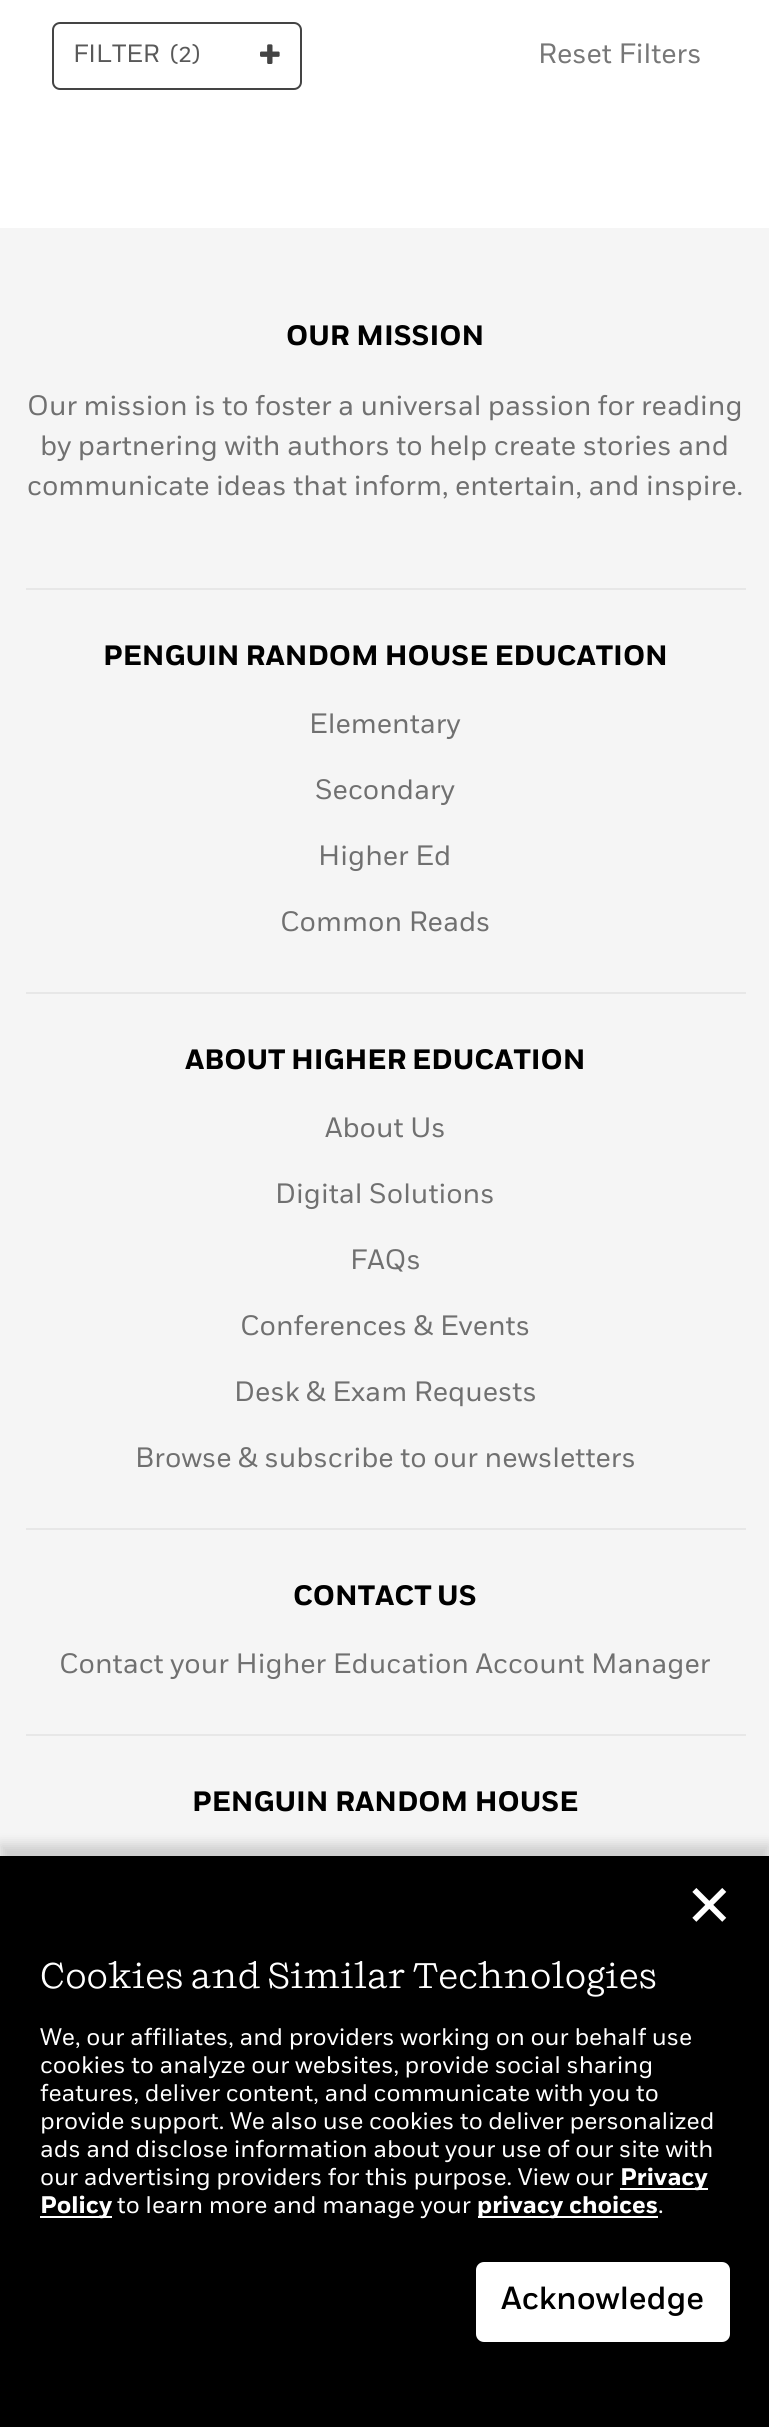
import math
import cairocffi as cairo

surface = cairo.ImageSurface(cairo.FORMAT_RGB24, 769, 2427)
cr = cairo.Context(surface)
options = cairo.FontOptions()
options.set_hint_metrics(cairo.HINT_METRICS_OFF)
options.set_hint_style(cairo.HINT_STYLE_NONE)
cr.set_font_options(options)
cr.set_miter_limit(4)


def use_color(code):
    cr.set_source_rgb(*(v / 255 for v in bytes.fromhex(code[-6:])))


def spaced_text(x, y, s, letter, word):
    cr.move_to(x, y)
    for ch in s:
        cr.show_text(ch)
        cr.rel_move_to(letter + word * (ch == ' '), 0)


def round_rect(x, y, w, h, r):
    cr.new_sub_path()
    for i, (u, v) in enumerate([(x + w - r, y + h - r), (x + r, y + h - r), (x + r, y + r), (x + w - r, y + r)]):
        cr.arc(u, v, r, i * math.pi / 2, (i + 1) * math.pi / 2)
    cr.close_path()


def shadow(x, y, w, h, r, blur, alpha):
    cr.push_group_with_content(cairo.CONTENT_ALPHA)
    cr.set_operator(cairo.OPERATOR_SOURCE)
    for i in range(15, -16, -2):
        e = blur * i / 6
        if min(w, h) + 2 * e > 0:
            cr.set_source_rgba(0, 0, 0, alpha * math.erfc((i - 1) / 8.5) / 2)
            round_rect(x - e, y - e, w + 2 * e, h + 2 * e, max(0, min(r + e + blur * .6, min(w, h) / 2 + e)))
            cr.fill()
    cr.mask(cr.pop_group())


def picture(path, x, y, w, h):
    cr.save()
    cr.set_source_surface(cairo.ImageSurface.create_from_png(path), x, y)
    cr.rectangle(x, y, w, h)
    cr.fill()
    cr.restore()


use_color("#ffffff")
cr.paint()
round_rect(53, 23, 248, 66, 7)
use_color("#444444")
cr.stroke()
cr.select_font_face("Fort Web")
cr.set_font_size(25)
use_color("#595959")
cr.move_to(73, 62)
cr.show_text("FILTER")
cr.move_to(170, 62)
cr.show_text("(2)")
picture("img1.png", 260, 44, 20, 20)
cr.set_font_size(28)
use_color("#777777")
cr.move_to(538, 63)
cr.show_text("Reset Filters")
use_color("#f5f5f5")
cr.rectangle(0, 228, 769, 1628)
cr.fill()
cr.select_font_face("Fort Web", cairo.FONT_SLANT_NORMAL, cairo.FONT_WEIGHT_BOLD)
use_color("#000000")
cr.move_to(286, 345)
cr.show_text("OUR MISSION")
cr.select_font_face("Fort Web")
use_color("#707070")
spaced_text(27, 415, "Our mission is to foster a universal passion for reading", 0, -0.25)
cr.move_to(40, 455)
cr.show_text("by partnering with authors to help create stories and")
cr.move_to(27, 495)
cr.show_text("communicate ideas that inform, entertain, and inspire.")
use_color("#e7e7e7")
cr.rectangle(26, 588, 720, 2)
cr.fill()
cr.select_font_face("Fort Web", cairo.FONT_SLANT_NORMAL, cairo.FONT_WEIGHT_BOLD)
use_color("#000000")
spaced_text(103, 665, "PENGUIN RANDOM HOUSE EDUCATION", 0, -0.5)
cr.select_font_face("Fort Web")
use_color("#707070")
cr.move_to(309, 733)
cr.show_text("Elementary")
cr.move_to(315, 799)
cr.show_text("Secondary")
cr.move_to(318, 865)
cr.show_text("Higher Ed")
cr.move_to(280, 931)
cr.show_text("Common Reads")
use_color("#e7e7e7")
cr.rectangle(26, 992, 720, 2)
cr.fill()
cr.select_font_face("Fort Web", cairo.FONT_SLANT_NORMAL, cairo.FONT_WEIGHT_BOLD)
use_color("#000000")
spaced_text(185, 1069, "ABOUT HIGHER EDUCATION", 0, -1)
cr.select_font_face("Fort Web")
use_color("#707070")
cr.move_to(325, 1137)
cr.show_text("About Us")
cr.move_to(275, 1203)
cr.show_text("Digital Solutions")
cr.move_to(350, 1269)
cr.show_text("FAQs")
cr.move_to(240, 1335)
cr.show_text("Conferences & Events")
cr.move_to(234, 1401)
cr.show_text("Desk & Exam Requests")
cr.move_to(135, 1467)
cr.show_text("Browse & subscribe to our newsletters")
use_color("#e7e7e7")
cr.rectangle(26, 1528, 720, 2)
cr.fill()
cr.select_font_face("Fort Web", cairo.FONT_SLANT_NORMAL, cairo.FONT_WEIGHT_BOLD)
use_color("#000000")
spaced_text(293, 1605, "CONTACT US", 0, -1)
cr.select_font_face("Fort Web")
use_color("#707070")
cr.move_to(59, 1673)
cr.show_text("Contact your Higher Education Account Manager")
use_color("#e7e7e7")
cr.rectangle(26, 1734, 720, 2)
cr.fill()
cr.select_font_face("Fort Web", cairo.FONT_SLANT_NORMAL, cairo.FONT_WEIGHT_BOLD)
use_color("#000000")
cr.move_to(192, 1811)
cr.show_text("PENGUIN RANDOM HOUSE")
use_color("#000000")
shadow(0, 1844, 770, 572, 0, 6, 0.16)
use_color("#000000")
cr.rectangle(0, 1856, 769, 571)
cr.fill()
cr.select_font_face("DejaVu Sans")
cr.set_font_size(58)
use_color("#ffffff")
cr.move_to(685, 1926)
cr.show_text("✕")
cr.select_font_face("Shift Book")
cr.set_font_size(36)
cr.move_to(40, 1988)
cr.show_text("Cookies and Similar Technologies")
cr.select_font_face("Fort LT")
cr.set_font_size(24)
cr.move_to(40, 2045)
cr.show_text("We, our affiliates, and providers working on our behalf use")
cr.move_to(40, 2073)
cr.show_text("cookies to analyze our websites, provide social sharing")
cr.move_to(40, 2101)
cr.show_text("features, deliver content, and communicate with you to")
cr.move_to(40, 2129)
cr.show_text("provide support. We also use cookies to deliver personalized")
cr.move_to(40, 2157)
cr.show_text("ads and disclose information about your use of our site with")
cr.move_to(40, 2185)
cr.show_text("our advertising providers for this purpose. View our")
cr.rectangle(620, 2188, 88, 2)
cr.fill()
cr.select_font_face("Fort LT", cairo.FONT_SLANT_NORMAL, cairo.FONT_WEIGHT_BOLD)
cr.move_to(620, 2185)
cr.show_text("Privacy")
cr.rectangle(40, 2216, 72, 2)
cr.fill()
cr.move_to(40, 2213)
cr.show_text("Policy")
cr.select_font_face("Fort LT")
cr.move_to(117, 2213)
cr.show_text("to learn more and manage your")
cr.rectangle(478, 2216, 180, 2)
cr.fill()
cr.select_font_face("Fort LT", cairo.FONT_SLANT_NORMAL, cairo.FONT_WEIGHT_BOLD)
cr.move_to(477, 2213)
cr.show_text("privacy choices")
cr.select_font_face("Fort LT")
cr.move_to(658, 2213)
cr.show_text(".")
round_rect(478, 2264, 250, 76, 6)
cr.fill_preserve()
cr.set_line_width(4)
cr.stroke()
cr.select_font_face("Fort LT Medium")
cr.set_font_size(32)
use_color("#000000")
cr.move_to(501, 2309)
cr.show_text("Acknowledge")
surface.write_to_png("result.png")
